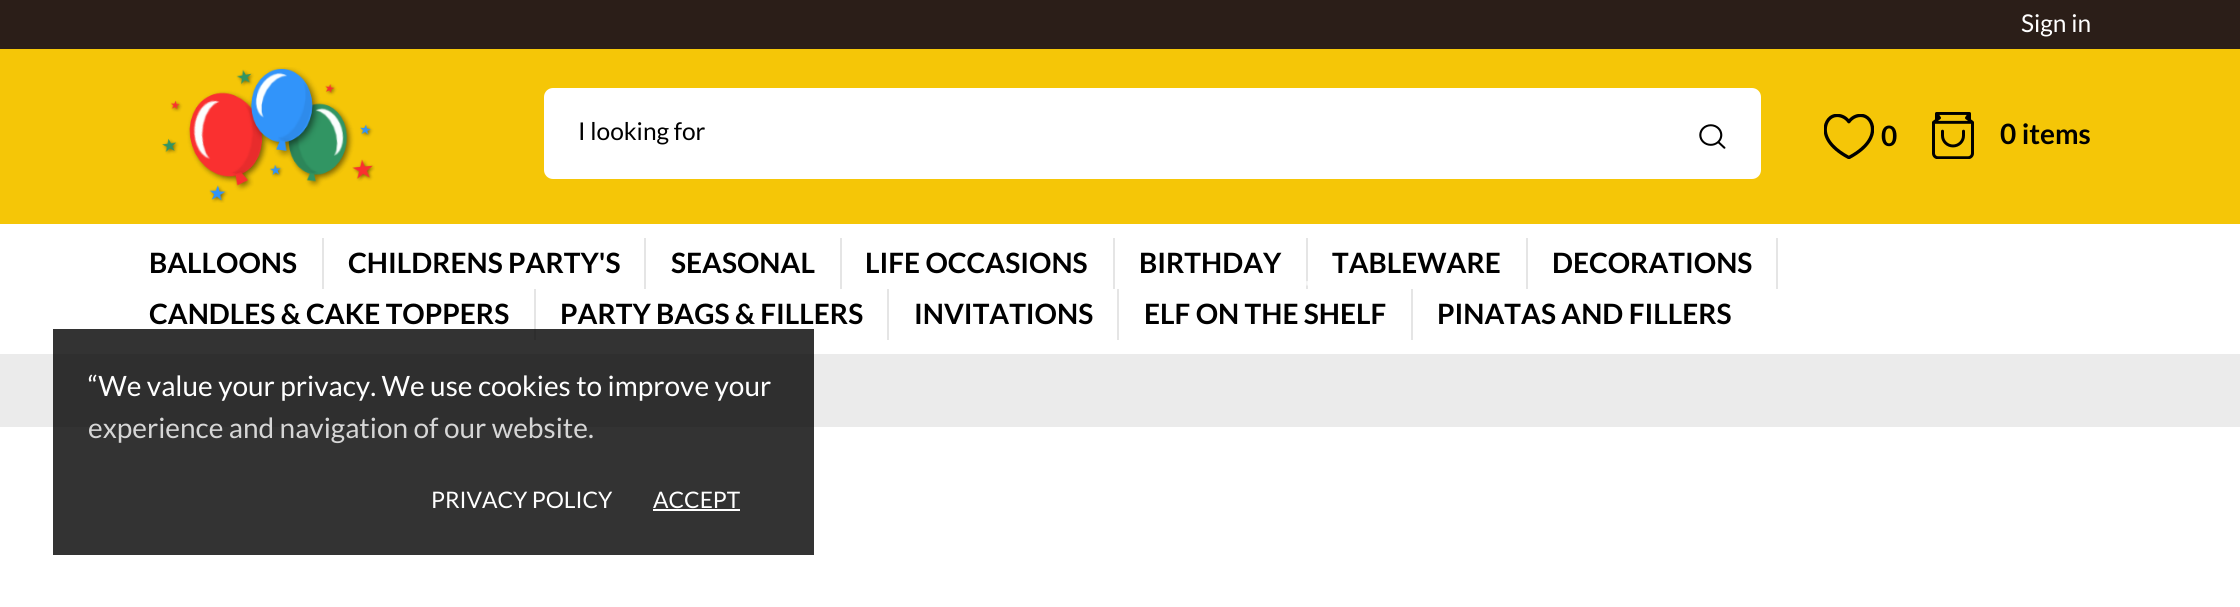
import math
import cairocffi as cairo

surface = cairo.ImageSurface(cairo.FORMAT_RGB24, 2240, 607)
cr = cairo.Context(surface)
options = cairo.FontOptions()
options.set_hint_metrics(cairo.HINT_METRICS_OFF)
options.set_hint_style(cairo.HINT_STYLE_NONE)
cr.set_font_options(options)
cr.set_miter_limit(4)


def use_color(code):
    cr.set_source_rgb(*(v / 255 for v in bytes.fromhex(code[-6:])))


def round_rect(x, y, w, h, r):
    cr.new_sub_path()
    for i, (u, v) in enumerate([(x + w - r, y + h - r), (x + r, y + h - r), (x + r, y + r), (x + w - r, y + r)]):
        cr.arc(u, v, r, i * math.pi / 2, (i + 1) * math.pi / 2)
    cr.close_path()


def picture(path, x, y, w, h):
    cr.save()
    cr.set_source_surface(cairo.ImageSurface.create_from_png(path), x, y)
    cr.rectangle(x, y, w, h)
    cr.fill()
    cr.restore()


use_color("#ffffff")
cr.paint()
use_color("#f5c607")
cr.rectangle(0, 49, 2240, 175)
cr.fill()
use_color("#2b1e18")
cr.rectangle(0, 0, 2240, 49)
cr.fill()
cr.select_font_face("Lato")
cr.set_font_size(24.5)
use_color("#ffffff")
cr.move_to(2021, 32)
cr.show_text("Sign in")
picture("img1.png", 162, 67, 213, 136)
round_rect(544, 88, 1217, 91, 9)
cr.fill()
use_color("#000000")
cr.move_to(578, 140)
cr.show_text("I looking for")
picture("img2.png", 1699, 124, 27, 25)
picture("img3.png", 1824, 114, 50, 45)
cr.select_font_face("Lato", cairo.FONT_SLANT_NORMAL, cairo.FONT_WEIGHT_BOLD)
cr.set_font_size(28)
cr.move_to(1881, 146)
cr.show_text("0")
picture("img4.png", 1932, 112, 42, 47)
cr.move_to(2000, 144)
cr.show_text("0 items")
use_color("#e5e5e5")
cr.rectangle(322, 238, 2, 51)
cr.fill()
use_color("#000000")
cr.move_to(149, 273)
cr.show_text("BALLOONS")
use_color("#e5e5e5")
cr.rectangle(644, 238, 2, 51)
cr.fill()
use_color("#000000")
cr.move_to(348, 273)
cr.show_text("CHILDRENS PARTY'S")
use_color("#e5e5e5")
cr.rectangle(840, 238, 2, 51)
cr.fill()
use_color("#000000")
cr.move_to(671, 273)
cr.show_text("SEASONAL")
use_color("#e5e5e5")
cr.rectangle(1113, 238, 2, 51)
cr.fill()
use_color("#000000")
cr.move_to(865, 273)
cr.show_text("LIFE OCCASIONS")
use_color("#e5e5e5")
cr.rectangle(1306, 238, 2, 51)
cr.fill()
use_color("#000000")
cr.move_to(1139, 273)
cr.show_text("BIRTHDAY")
use_color("#e5e5e5")
cr.rectangle(1526, 238, 2, 51)
cr.fill()
use_color("#000000")
cr.move_to(1332, 273)
cr.show_text("TABLEWARE")
use_color("#e5e5e5")
cr.rectangle(1776, 238, 2, 51)
cr.fill()
use_color("#000000")
cr.move_to(1552, 273)
cr.show_text("DECORATIONS")
use_color("#e5e5e5")
cr.rectangle(534, 289, 2, 51)
cr.fill()
use_color("#000000")
cr.move_to(149, 324)
cr.show_text("CANDLES & CAKE TOPPERS")
use_color("#e5e5e5")
cr.rectangle(887, 289, 2, 51)
cr.fill()
use_color("#000000")
cr.move_to(560, 324)
cr.show_text("PARTY BAGS & FILLERS")
use_color("#e5e5e5")
cr.rectangle(1117, 289, 2, 51)
cr.fill()
use_color("#000000")
cr.move_to(914, 324)
cr.show_text("INVITATIONS")
use_color("#e5e5e5")
cr.rectangle(1411, 289, 2, 51)
cr.fill()
cr.select_font_face("Lato")
cr.set_font_size(18)
use_color("#ffffff")
cr.move_to(1305, 294)
cr.show_text("'")
cr.select_font_face("Lato", cairo.FONT_SLANT_NORMAL, cairo.FONT_WEIGHT_BOLD)
cr.set_font_size(28)
use_color("#000000")
cr.move_to(1144, 324)
cr.show_text("ELF ON THE SHELF")
cr.move_to(1437, 324)
cr.show_text("PINATAS AND FILLERS")
use_color("#ebebeb")
cr.rectangle(0, 354, 2240, 73)
cr.fill()
cr.set_source_rgba(0, 0, 0, 0.8)
cr.rectangle(53, 329, 761, 226)
cr.fill()
cr.select_font_face("Lato")
use_color("#ffffff")
cr.move_to(88, 396)
cr.show_text("“We value your privacy. We use cookies to improve your")
use_color("#d6d6d6")
cr.move_to(88, 438)
cr.show_text("experience and navigation of our website.")
cr.set_font_size(22.75)
use_color("#ffffff")
cr.move_to(431, 508)
cr.show_text("PRIVACY POLICY")
cr.move_to(653, 508)
cr.show_text("ACCEPT")
cr.rectangle(653, 509, 87, 2)
cr.fill()
surface.write_to_png("result.png")
